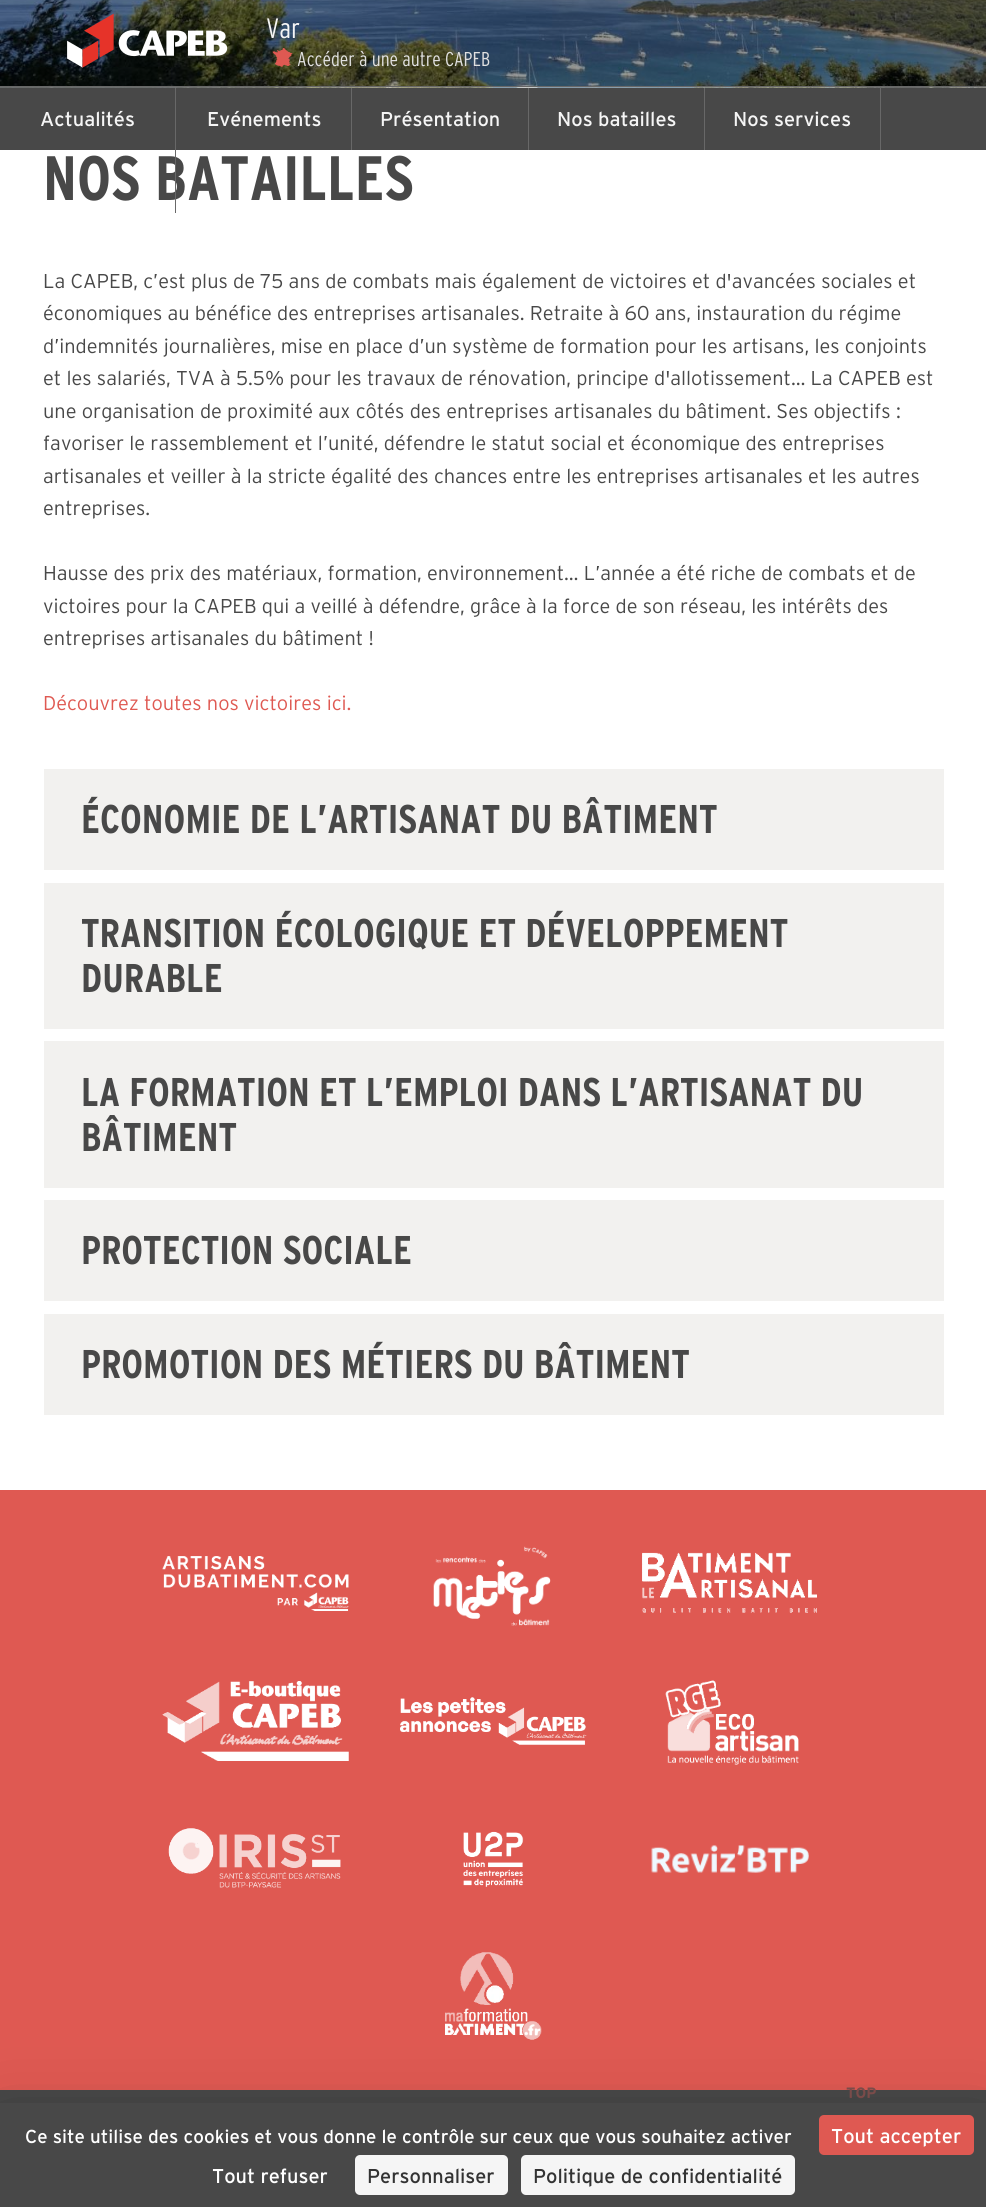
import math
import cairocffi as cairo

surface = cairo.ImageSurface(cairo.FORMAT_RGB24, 986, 2207)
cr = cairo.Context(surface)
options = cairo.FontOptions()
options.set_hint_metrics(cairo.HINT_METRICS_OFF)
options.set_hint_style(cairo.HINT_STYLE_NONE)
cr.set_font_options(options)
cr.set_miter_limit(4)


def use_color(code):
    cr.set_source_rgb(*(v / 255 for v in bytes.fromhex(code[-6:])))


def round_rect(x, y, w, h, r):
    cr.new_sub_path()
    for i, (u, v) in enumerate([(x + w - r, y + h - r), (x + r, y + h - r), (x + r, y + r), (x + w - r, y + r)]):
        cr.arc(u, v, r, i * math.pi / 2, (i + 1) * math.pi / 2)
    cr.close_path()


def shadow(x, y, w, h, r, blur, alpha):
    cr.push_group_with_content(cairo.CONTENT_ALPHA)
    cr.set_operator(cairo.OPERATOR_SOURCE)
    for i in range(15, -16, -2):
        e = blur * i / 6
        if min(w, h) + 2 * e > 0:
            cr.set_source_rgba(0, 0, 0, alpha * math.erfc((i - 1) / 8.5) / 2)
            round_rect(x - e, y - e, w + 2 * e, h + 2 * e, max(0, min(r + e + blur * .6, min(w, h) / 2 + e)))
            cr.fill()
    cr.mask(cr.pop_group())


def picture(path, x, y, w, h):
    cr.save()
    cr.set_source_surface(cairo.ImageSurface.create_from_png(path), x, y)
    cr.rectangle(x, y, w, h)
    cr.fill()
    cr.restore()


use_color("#ffffff")
cr.paint()
picture("img1.png", 0, 0, 986, 88)
use_color("#686868")
cr.rectangle(0, 86, 986, 1)
cr.fill()
picture("img2.png", 67, 13, 161, 55)
cr.select_font_face("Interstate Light")
cr.set_font_size(28)
use_color("#f5f5f5")
cr.move_to(266, 38)
cr.show_text("Var")
picture("img3.png", 272, 48, 21, 19)
cr.set_font_size(20)
use_color("#e0e0e0")
cr.move_to(297, 66)
cr.show_text("Accéder à une autre CAPEB")
use_color("#484848")
cr.rectangle(0, 88, 986, 62)
cr.fill()
cr.select_font_face("Interstate", cairo.FONT_SLANT_NORMAL, cairo.FONT_WEIGHT_BOLD)
cr.set_font_size(62.5)
cr.move_to(43, 200)
cr.show_text("NOS BATAILLES")
use_color("#686868")
cr.rectangle(175, 88, 1, 125)
cr.fill()
cr.select_font_face("Interstate")
cr.set_font_size(20)
use_color("#f5f5f5")
cr.move_to(40, 126)
cr.show_text("Actualités")
use_color("#686868")
cr.rectangle(351, 88, 1, 62)
cr.fill()
use_color("#f5f5f5")
cr.move_to(207, 126)
cr.show_text("Evénements")
use_color("#686868")
cr.rectangle(528, 88, 1, 62)
cr.fill()
use_color("#f5f5f5")
cr.move_to(380, 126)
cr.show_text("Présentation")
use_color("#686868")
cr.rectangle(704, 88, 1, 62)
cr.fill()
use_color("#f5f5f5")
cr.move_to(557, 126)
cr.show_text("Nos batailles")
use_color("#686868")
cr.rectangle(880, 88, 1, 62)
cr.fill()
use_color("#f5f5f5")
cr.move_to(733, 126)
cr.show_text("Nos services")
cr.select_font_face("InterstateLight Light")
use_color("#484848")
cr.move_to(43, 288)
cr.show_text("La CAPEB, c’est plus de 75 ans de combats mais également de victoires et d'avancées sociales et")
cr.move_to(43, 320)
cr.show_text("économiques au bénéfice des entreprises artisanales. Retraite à 60 ans, instauration du régime")
cr.move_to(43, 353)
cr.show_text("d’indemnités journalières, mise en place d’un système de formation pour les artisans, les conjoints")
cr.move_to(43, 385)
cr.show_text("et les salariés, TVA à 5.5% pour les travaux de rénovation, principe d'allotissement… La CAPEB est")
cr.move_to(43, 418)
cr.show_text("une organisation de proximité aux côtés des entreprises artisanales du bâtiment. Ses objectifs :")
cr.move_to(43, 450)
cr.show_text("favoriser le rassemblement et l’unité, défendre le statut social et économique des entreprises")
cr.move_to(43, 483)
cr.show_text("artisanales et veiller à la stricte égalité des chances entre les entreprises artisanales et les autres")
cr.move_to(43, 515)
cr.show_text("entreprises.")
cr.move_to(43, 580)
cr.show_text("Hausse des prix des matériaux, formation, environnement… L’année a été riche de combats et de")
cr.move_to(43, 613)
cr.show_text("victoires pour la CAPEB qui a veillé à défendre, grâce à la force de son réseau, les intérêts des")
cr.move_to(43, 645)
cr.show_text("entreprises artisanales du bâtiment !")
use_color("#df5952")
cr.move_to(43, 710)
cr.show_text("Découvrez toutes nos victoires ici.")
use_color("#f2f1ef")
cr.rectangle(44, 769, 900, 101)
cr.fill()
cr.select_font_face("Interstate", cairo.FONT_SLANT_NORMAL, cairo.FONT_WEIGHT_BOLD)
cr.set_font_size(40)
use_color("#484848")
cr.move_to(81, 833)
cr.show_text("ÉCONOMIE DE L’ARTISANAT DU BÂTIMENT")
use_color("#f2f1ef")
cr.rectangle(44, 883, 900, 146)
cr.fill()
use_color("#484848")
cr.move_to(81, 947)
cr.show_text("TRANSITION ÉCOLOGIQUE ET DÉVELOPPEMENT")
cr.move_to(81, 992)
cr.show_text("DURABLE")
use_color("#f2f1ef")
cr.rectangle(44, 1041, 900, 147)
cr.fill()
use_color("#484848")
cr.move_to(81, 1106)
cr.show_text("LA FORMATION ET L’EMPLOI DANS L’ARTISANAT DU")
cr.move_to(81, 1151)
cr.show_text("BÂTIMENT")
use_color("#f2f1ef")
cr.rectangle(44, 1200, 900, 101)
cr.fill()
use_color("#484848")
cr.move_to(81, 1264)
cr.show_text("PROTECTION SOCIALE")
use_color("#f2f1ef")
cr.rectangle(44, 1314, 900, 101)
cr.fill()
use_color("#484848")
cr.move_to(81, 1378)
cr.show_text("PROMOTION DES MÉTIERS DU BÂTIMENT")
use_color("#df5952")
cr.rectangle(0, 1490, 986, 600)
cr.fill()
picture("img4.png", 162, 1556, 187, 55)
picture("img5.png", 433, 1546, 118, 80)
picture("img6.png", 642, 1552, 175, 61)
picture("img7.png", 162, 1681, 187, 80)
picture("img8.png", 400, 1697, 187, 48)
picture("img9.png", 665, 1680, 134, 85)
picture("img10.png", 168, 1828, 173, 60)
picture("img11.png", 463, 1831, 61, 56)
picture("img12.png", 651, 1845, 158, 28)
picture("img13.png", 445, 1952, 97, 88)
use_color("#484848")
cr.rectangle(0, 2090, 986, 13)
cr.fill()
cr.select_font_face("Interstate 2", cairo.FONT_SLANT_NORMAL, cairo.FONT_WEIGHT_BOLD)
cr.set_font_size(15)
use_color("#804e4c")
cr.move_to(846, 2098)
cr.show_text("TOP")
use_color("#000000")
shadow(0, 2128, 986, 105, 0, 37.5, 0.25)
use_color("#484848")
cr.rectangle(0, 2103, 986, 104)
cr.fill()
cr.select_font_face("Interstate")
cr.set_font_size(18.75)
use_color("#ffffff")
cr.move_to(25, 2143)
cr.show_text("Ce site utilise des cookies et vous donne le contrôle sur ceux que vous souhaitez activer")
use_color("#df5952")
round_rect(819, 2115, 155, 40, 5)
cr.fill()
cr.set_font_size(20)
use_color("#ffffff")
cr.move_to(831, 2143)
cr.show_text("Tout accepter")
cr.move_to(212, 2183)
cr.show_text("Tout refuser")
use_color("#f5f5f5")
round_rect(355, 2155, 153, 40, 5)
cr.fill()
use_color("#333333")
cr.move_to(367, 2183)
cr.show_text("Personnaliser")
use_color("#f5f5f5")
round_rect(521, 2155, 274, 40, 5)
cr.fill()
use_color("#333333")
cr.move_to(533, 2183)
cr.show_text("Politique de confidentialité")
surface.write_to_png("result.png")
